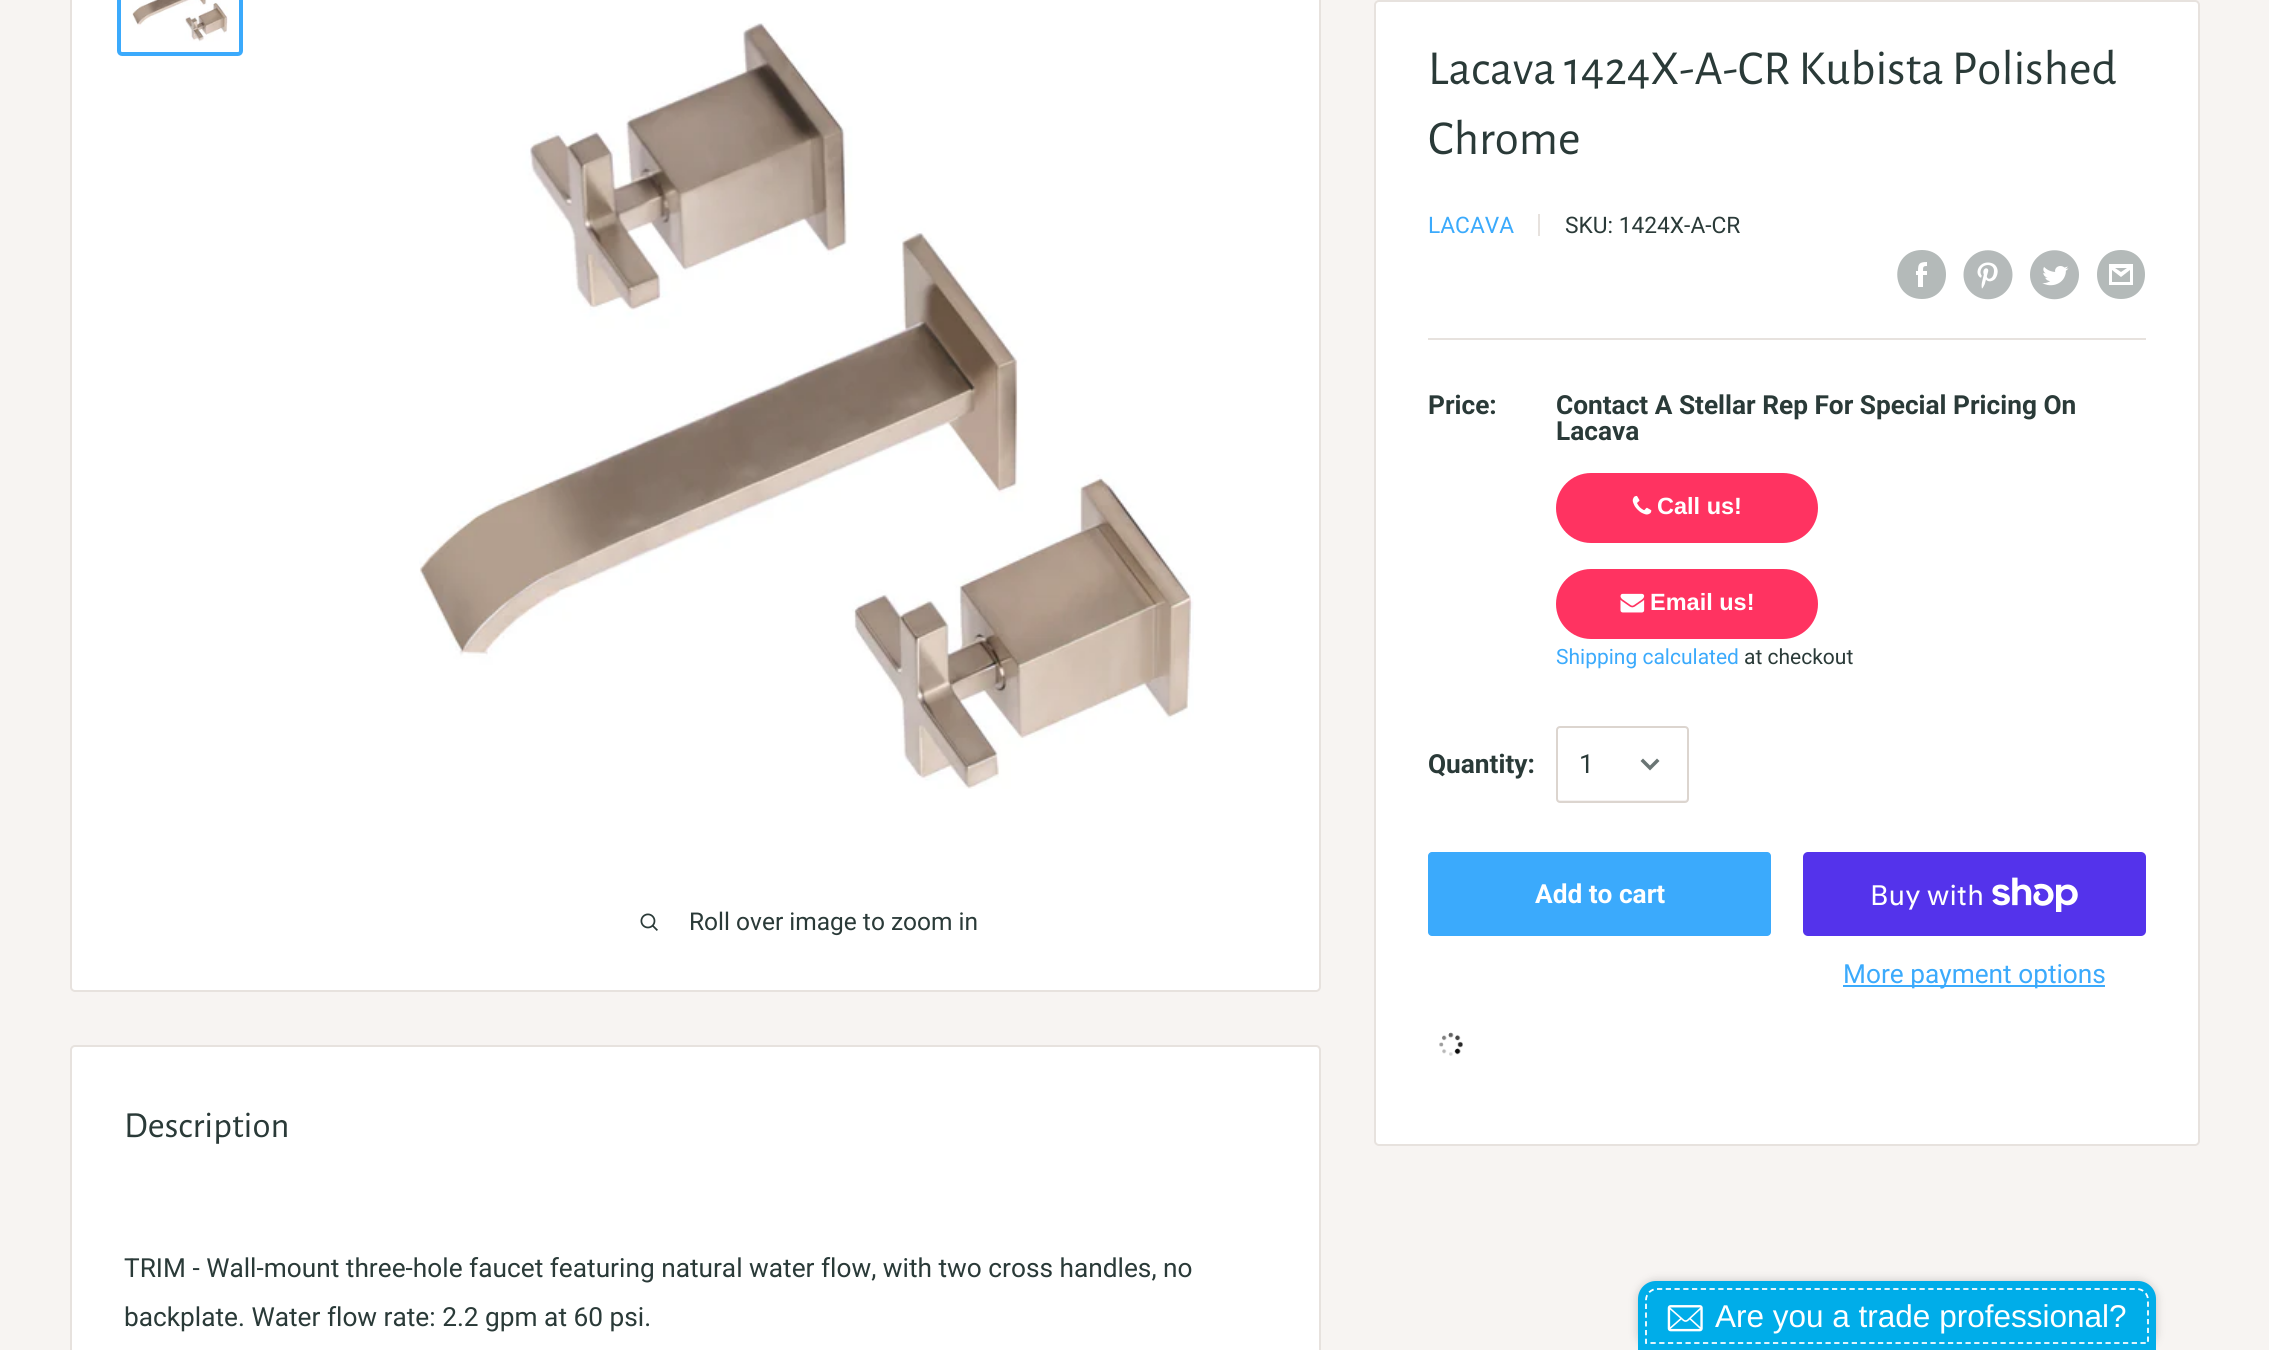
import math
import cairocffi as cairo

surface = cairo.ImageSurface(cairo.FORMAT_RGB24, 2269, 1350)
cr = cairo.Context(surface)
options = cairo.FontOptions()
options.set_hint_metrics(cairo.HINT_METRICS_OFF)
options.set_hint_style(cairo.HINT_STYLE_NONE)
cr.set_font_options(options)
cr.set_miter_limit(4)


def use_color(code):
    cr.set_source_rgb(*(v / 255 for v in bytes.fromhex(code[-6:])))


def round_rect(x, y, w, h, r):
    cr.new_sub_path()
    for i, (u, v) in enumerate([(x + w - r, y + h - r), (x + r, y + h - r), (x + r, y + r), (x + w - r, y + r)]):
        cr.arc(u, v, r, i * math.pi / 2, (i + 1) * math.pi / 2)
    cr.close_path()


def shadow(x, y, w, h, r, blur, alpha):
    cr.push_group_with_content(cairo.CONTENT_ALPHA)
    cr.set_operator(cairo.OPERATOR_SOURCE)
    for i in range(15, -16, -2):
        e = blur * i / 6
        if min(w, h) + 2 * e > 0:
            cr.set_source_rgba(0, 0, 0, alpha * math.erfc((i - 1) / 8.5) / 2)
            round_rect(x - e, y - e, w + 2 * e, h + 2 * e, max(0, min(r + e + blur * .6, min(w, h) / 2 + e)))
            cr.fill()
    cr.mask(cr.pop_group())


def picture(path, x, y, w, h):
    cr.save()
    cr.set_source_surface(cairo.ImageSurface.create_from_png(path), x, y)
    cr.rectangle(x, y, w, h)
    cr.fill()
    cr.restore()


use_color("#f7f4f2")
cr.paint()
use_color("#ffffff")
round_rect(71, -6, 1249, 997, 4)
cr.fill_preserve()
use_color("#e7e2de")
cr.stroke()
round_rect(119, -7, 122, 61, 3)
use_color("#3baafc")
cr.set_line_width(4)
cr.stroke()
picture("img1.png", 132, 0, 96, 42)
picture("img2.png", 419, 23, 775, 766)
picture("img3.png", 640, 913, 18, 18)
cr.select_font_face("Roboto")
cr.set_font_size(24.5)
use_color("#2a3a38")
cr.move_to(689, 930)
cr.show_text("Roll over image to zoom in")
use_color("#ffffff")
round_rect(1375, 1, 824, 1144, 4)
cr.fill_preserve()
use_color("#e7e2de")
cr.set_line_width(2)
cr.stroke()
cr.select_font_face("Alegreya Sans")
cr.set_font_size(49)
use_color("#2a3a38")
cr.move_to(1428, 84)
cr.show_text("Lacava 1424X-A-CR Kubista Polished")
cr.move_to(1428, 154)
cr.show_text("Chrome")
cr.select_font_face("Roboto")
cr.set_font_size(22.75)
use_color("#3baafc")
cr.move_to(1428, 233)
cr.show_text("LACAVA")
use_color("#e7e2de")
cr.rectangle(1538, 214, 2, 22)
cr.fill()
use_color("#2a3a38")
cr.move_to(1565, 233)
cr.show_text("SKU: 1424X-A-CR")
use_color("#b4bab9")
cr.set_fill_rule(cairo.FILL_RULE_EVEN_ODD)
cr.new_path()
cr.move_to(1922, 299)
cr.curve_to(1889, 299, 1889, 250, 1922, 250)
cr.curve_to(1954, 250, 1954, 299, 1922, 299)
cr.close_path()
cr.move_to(1927, 271)
cr.line_to(1923, 271)
cr.curve_to(1923, 267, 1923, 266, 1927, 266)
cr.line_to(1927, 262)
cr.curve_to(1919, 262, 1918, 264, 1918, 271)
cr.line_to(1916, 271)
cr.line_to(1916, 275)
cr.line_to(1918, 275)
cr.line_to(1918, 287)
cr.line_to(1923, 287)
cr.line_to(1923, 275)
cr.line_to(1927, 275)
cr.close_path()
cr.fill()
picture("img4.png", 1963, 250, 50, 50)
picture("img5.png", 2030, 250, 49, 50)
cr.set_fill_rule(cairo.FILL_RULE_WINDING)
cr.new_path()
cr.move_to(2121, 299)
cr.curve_to(2089, 299, 2089, 250, 2121, 250)
cr.curve_to(2153, 250, 2153, 299, 2121, 299)
cr.close_path()
cr.move_to(2115, 268)
cr.line_to(2127, 268)
cr.line_to(2121, 272)
cr.close_path()
cr.move_to(2130, 270)
cr.line_to(2130, 282)
cr.line_to(2112, 282)
cr.line_to(2112, 270)
cr.line_to(2121, 277)
cr.close_path()
cr.move_to(2133, 264)
cr.line_to(2109, 264)
cr.line_to(2109, 285)
cr.line_to(2133, 285)
cr.close_path()
cr.fill()
use_color("#e7e2de")
cr.rectangle(1428, 338, 718, 2)
cr.fill()
cr.select_font_face("Roboto", cairo.FONT_SLANT_NORMAL, cairo.FONT_WEIGHT_BOLD)
cr.set_font_size(26.25)
use_color("#2a3a38")
cr.move_to(1428, 414)
cr.show_text("Price:")
cr.move_to(1556, 414)
cr.show_text("Contact A Stellar Rep For Special Pricing On")
cr.move_to(1556, 440)
cr.show_text("Lacava")
use_color("#ff3361")
round_rect(1556, 473, 262, 70, 35)
cr.fill()
picture("img6.png", 1632, 495, 20, 20)
cr.select_font_face("Liberation Sans", cairo.FONT_SLANT_NORMAL, cairo.FONT_WEIGHT_BOLD)
cr.set_font_size(23.5)
use_color("#ffffff")
cr.move_to(1657, 514)
cr.show_text("Call us!")
use_color("#ff3361")
round_rect(1556, 569, 262, 70, 35)
cr.fill()
picture("img7.png", 1620, 593, 25, 20)
use_color("#ffffff")
cr.move_to(1650, 610)
cr.show_text("Email us!")
cr.select_font_face("Roboto")
cr.set_font_size(21)
use_color("#3baafc")
cr.move_to(1556, 664)
cr.show_text("Shipping calculated")
use_color("#2a3a38")
cr.move_to(1744, 664)
cr.show_text("at checkout")
cr.select_font_face("Roboto", cairo.FONT_SLANT_NORMAL, cairo.FONT_WEIGHT_BOLD)
cr.set_font_size(26.25)
cr.move_to(1428, 773)
cr.show_text("Quantity:")
use_color("#f5f2f1")
cr.new_path()
cr.move_to(1558, 798)
cr.line_to(1558, 800)
cr.curve_to(1558, 801, 1559, 802, 1560, 802)
cr.line_to(1685, 802)
cr.curve_to(1686, 802, 1687, 801, 1687, 800)
cr.line_to(1687, 798)
cr.curve_to(1687, 799, 1686, 800, 1685, 800)
cr.line_to(1559, 800)
cr.curve_to(1558, 800, 1558, 799, 1558, 798)
cr.close_path()
cr.fill()
round_rect(1557, 727, 131, 75, 3)
use_color("#dcd5cf")
cr.stroke()
cr.select_font_face("Roboto")
use_color("#2a3a38")
cr.move_to(1579, 773)
cr.show_text("1")
cr.new_path()
cr.move_to(1657, 761)
cr.line_to(1650, 768)
cr.line_to(1643, 761)
use_color("#6a7574")
cr.set_line_width(3.5)
cr.set_line_cap(cairo.LINE_CAP_SQUARE)
cr.stroke()
use_color("#3baafc")
round_rect(1428, 852, 343, 84, 4)
cr.fill()
cr.select_font_face("Roboto", cairo.FONT_SLANT_NORMAL, cairo.FONT_WEIGHT_BOLD)
use_color("#ffffff")
cr.move_to(1535, 903)
cr.show_text("Add to cart")
use_color("#5433eb")
round_rect(1803, 852, 343, 84, 5)
cr.fill()
cr.select_font_face("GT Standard")
cr.set_font_size(28)
use_color("#ffffff")
cr.move_to(1870, 905)
cr.show_text("Buy with")
picture("img8.png", 1992, 877, 86, 35)
use_color("#3baafc")
cr.rectangle(1843, 985, 262, 2)
cr.fill()
cr.select_font_face("Roboto")
cr.set_font_size(26.25)
cr.move_to(1843, 983)
cr.show_text("More payment options")
picture("img9.png", 1439, 1032, 24, 24)
use_color("#ffffff")
round_rect(71, 1046, 1249, 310, 4)
cr.fill_preserve()
use_color("#e7e2de")
cr.set_line_width(2)
cr.set_line_cap(cairo.LINE_CAP_BUTT)
cr.stroke()
cr.select_font_face("Alegreya Sans")
cr.set_font_size(36.75)
use_color("#2a3a38")
cr.move_to(124, 1137)
cr.show_text("Description")
cr.select_font_face("Roboto")
cr.set_font_size(26.25)
cr.move_to(124, 1277)
cr.show_text("TRIM - Wall-mount three-hole faucet featuring natural water flow, with two cross handles, no")
cr.move_to(124, 1326)
cr.show_text("backplate. Water flow rate: 2.2 gpm at 60 psi.")
use_color("#000000")
shadow(1638, 1281, 518, 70, 18, 4.5, 0.2)
use_color("#00ade9")
cr.new_path()
cr.move_to(1656, 1281)
cr.line_to(2138, 1281)
cr.curve_to(2148, 1281, 2156, 1289, 2156, 1299)
cr.line_to(2156, 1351)
cr.line_to(1638, 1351)
cr.line_to(1638, 1299)
cr.curve_to(1638, 1289, 1646, 1281, 1656, 1281)
cr.close_path()
cr.fill()
cr.new_path()
cr.move_to(1657, 1289)
cr.line_to(2137, 1289)
cr.curve_to(2143, 1289, 2148, 1294, 2148, 1300)
cr.line_to(2148, 1343)
cr.line_to(1646, 1343)
cr.line_to(1646, 1300)
cr.curve_to(1646, 1294, 1651, 1289, 1657, 1289)
cr.close_path()
use_color("#ffffff")
cr.set_line_width(1.8)
cr.set_dash([5.25, 3.5])
cr.stroke()
picture("img10.png", 1667, 1305, 36, 27)
cr.select_font_face("Liberation Sans")
cr.set_font_size(31.5)
cr.move_to(1715, 1327)
cr.show_text("Are you a trade professional?")
surface.write_to_png("result.png")
